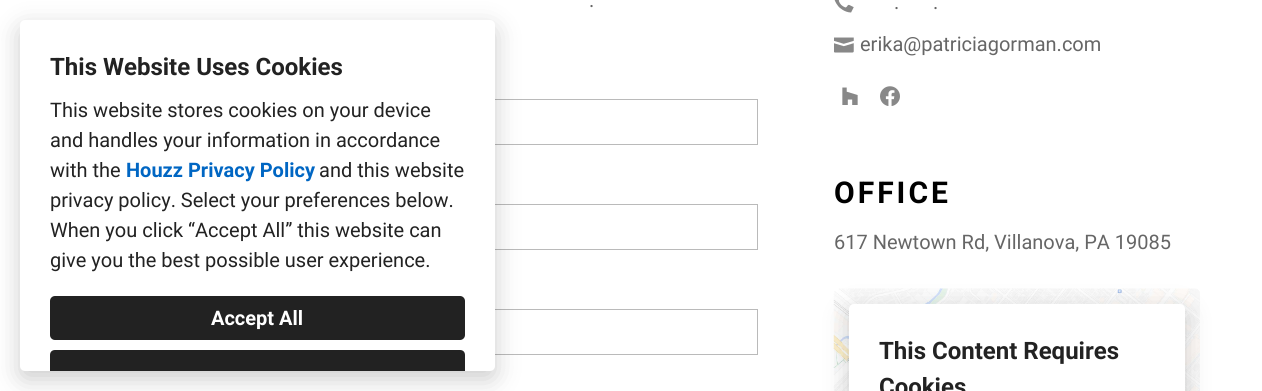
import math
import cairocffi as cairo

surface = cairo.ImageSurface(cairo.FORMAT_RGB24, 1262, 391)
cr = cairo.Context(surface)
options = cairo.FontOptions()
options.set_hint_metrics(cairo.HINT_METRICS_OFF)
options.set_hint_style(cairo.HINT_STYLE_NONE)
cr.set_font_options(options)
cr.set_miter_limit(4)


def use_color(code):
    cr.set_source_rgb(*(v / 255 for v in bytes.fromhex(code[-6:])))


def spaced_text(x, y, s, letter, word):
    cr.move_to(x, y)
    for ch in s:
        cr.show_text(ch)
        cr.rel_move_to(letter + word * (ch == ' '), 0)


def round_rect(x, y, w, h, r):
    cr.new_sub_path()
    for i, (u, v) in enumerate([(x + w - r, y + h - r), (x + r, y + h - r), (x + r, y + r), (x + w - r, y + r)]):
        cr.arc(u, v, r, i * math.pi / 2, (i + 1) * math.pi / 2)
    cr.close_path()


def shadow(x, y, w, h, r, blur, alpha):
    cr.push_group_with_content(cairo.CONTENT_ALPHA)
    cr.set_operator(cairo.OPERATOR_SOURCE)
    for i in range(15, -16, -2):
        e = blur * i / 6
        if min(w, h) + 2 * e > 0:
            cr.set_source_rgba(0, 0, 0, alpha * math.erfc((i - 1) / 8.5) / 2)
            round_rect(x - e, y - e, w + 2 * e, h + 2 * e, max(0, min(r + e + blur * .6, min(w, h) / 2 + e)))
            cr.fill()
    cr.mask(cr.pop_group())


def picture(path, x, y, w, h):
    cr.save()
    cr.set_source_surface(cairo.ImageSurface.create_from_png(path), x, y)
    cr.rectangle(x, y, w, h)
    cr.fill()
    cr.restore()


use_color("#ffffff")
cr.paint()
cr.rectangle(100.5, 99.5, 657, 45)
use_color("#bababa")
cr.set_line_width(1)
cr.stroke()
cr.rectangle(100.5, 204.5, 657, 45)
cr.stroke()
cr.rectangle(156.5, 309.5, 601, 45)
cr.stroke()
use_color("#000000")
shadow(20, 28, 475, 351, 5, 12.5, 0.2)
use_color("#ffffff")
round_rect(20, 20, 475, 351, 5)
cr.fill()
cr.select_font_face("Roboto", cairo.FONT_SLANT_NORMAL, cairo.FONT_WEIGHT_BOLD)
cr.set_font_size(24)
use_color("#222222")
cr.move_to(50, 75)
cr.show_text("This Website Uses Cookies")
cr.select_font_face("Roboto")
cr.set_font_size(20)
cr.move_to(50, 117)
cr.show_text("This website stores cookies on your device")
cr.move_to(50, 147)
cr.show_text("and handles your information in accordance")
cr.move_to(50, 177)
cr.show_text("with the")
cr.select_font_face("Roboto", cairo.FONT_SLANT_NORMAL, cairo.FONT_WEIGHT_BOLD)
use_color("#0066c3")
cr.move_to(126, 177)
cr.show_text("Houzz Privacy Policy")
cr.select_font_face("Roboto")
use_color("#222222")
cr.move_to(319, 177)
cr.show_text("and this website")
cr.move_to(50, 207)
cr.show_text("privacy policy. Select your preferences below.")
cr.move_to(50, 237)
cr.show_text("When you click “Accept All” this website can")
cr.move_to(50, 267)
cr.show_text("give you the best possible user experience.")
round_rect(50, 296, 415, 44, 5)
cr.fill()
cr.select_font_face("Roboto", cairo.FONT_SLANT_NORMAL, cairo.FONT_WEIGHT_BOLD)
use_color("#ffffff")
cr.move_to(211, 325)
cr.show_text("Accept All")
use_color("#222222")
cr.new_path()
cr.move_to(55, 350)
cr.line_to(460, 350)
cr.curve_to(463, 350, 465, 352, 465, 355)
cr.line_to(465, 371)
cr.line_to(50, 371)
cr.line_to(50, 355)
cr.curve_to(50, 352, 52, 350, 55, 350)
cr.close_path()
cr.fill()
cr.select_font_face("Roboto")
use_color("#666666")
cr.move_to(589, 7)
cr.show_text(".")
picture("img1.png", 834, 0, 20, 13)
cr.move_to(894, 9)
cr.show_text(".")
cr.move_to(933, 9)
cr.show_text(".")
picture("img2.png", 834, 37, 20, 16)
cr.move_to(860, 51)
cr.show_text("erika@patriciagorman.com")
picture("img3.png", 842, 87, 16, 18)
picture("img4.png", 880, 86, 20, 20)
cr.select_font_face("Roboto", cairo.FONT_SLANT_NORMAL, cairo.FONT_WEIGHT_BOLD)
cr.set_font_size(30)
use_color("#000000")
spaced_text(834, 203, "OFFICE", 3, 0)
cr.select_font_face("Roboto")
cr.set_font_size(20)
use_color("#666666")
cr.move_to(834, 249)
cr.show_text("617 Newtown Rd, Villanova, PA 19085")
picture("img5.png", 833, 288, 367, 103)
use_color("#000000")
shadow(849, 311, 336, 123, 5, 12.5, 0.2)
use_color("#ffffff")
round_rect(849, 304, 336, 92, 5)
cr.fill()
cr.select_font_face("Roboto", cairo.FONT_SLANT_NORMAL, cairo.FONT_WEIGHT_BOLD)
cr.set_font_size(24)
use_color("#222222")
cr.move_to(879, 359)
cr.show_text("This Content Requires")
cr.move_to(879, 395)
cr.show_text("Cookies")
surface.write_to_png("result.png")
